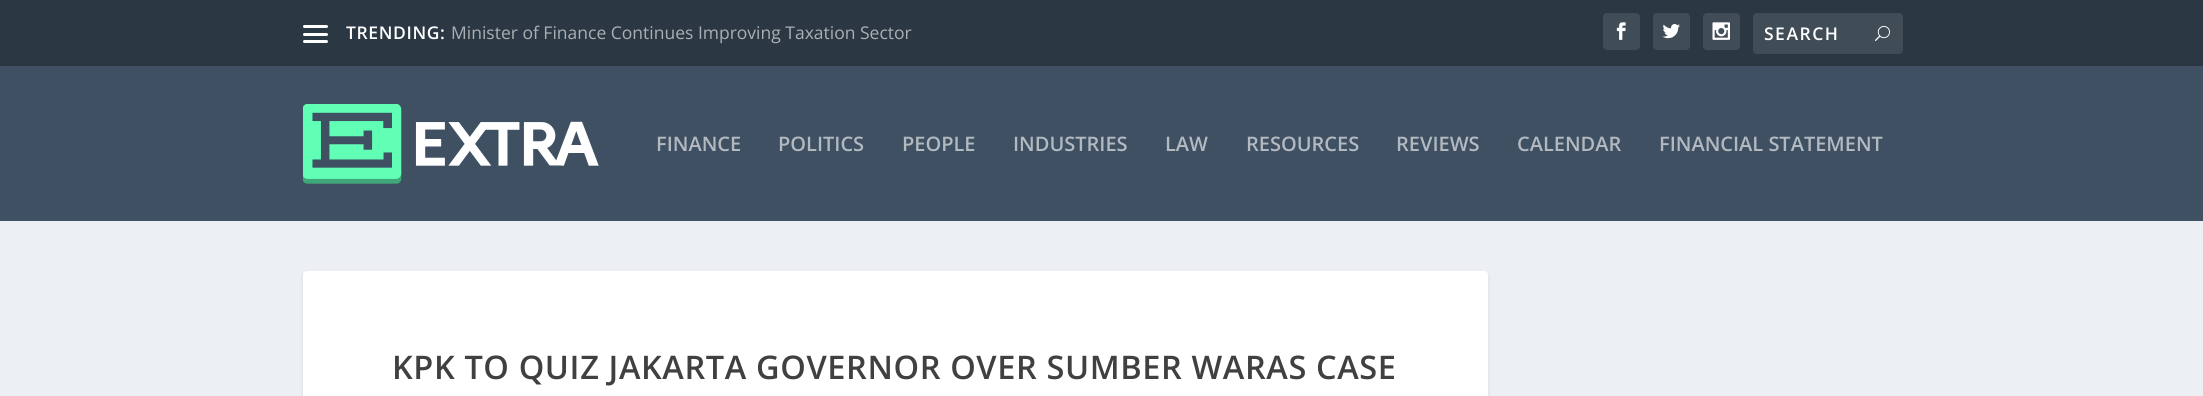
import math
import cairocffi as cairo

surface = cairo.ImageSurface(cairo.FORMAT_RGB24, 2203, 396)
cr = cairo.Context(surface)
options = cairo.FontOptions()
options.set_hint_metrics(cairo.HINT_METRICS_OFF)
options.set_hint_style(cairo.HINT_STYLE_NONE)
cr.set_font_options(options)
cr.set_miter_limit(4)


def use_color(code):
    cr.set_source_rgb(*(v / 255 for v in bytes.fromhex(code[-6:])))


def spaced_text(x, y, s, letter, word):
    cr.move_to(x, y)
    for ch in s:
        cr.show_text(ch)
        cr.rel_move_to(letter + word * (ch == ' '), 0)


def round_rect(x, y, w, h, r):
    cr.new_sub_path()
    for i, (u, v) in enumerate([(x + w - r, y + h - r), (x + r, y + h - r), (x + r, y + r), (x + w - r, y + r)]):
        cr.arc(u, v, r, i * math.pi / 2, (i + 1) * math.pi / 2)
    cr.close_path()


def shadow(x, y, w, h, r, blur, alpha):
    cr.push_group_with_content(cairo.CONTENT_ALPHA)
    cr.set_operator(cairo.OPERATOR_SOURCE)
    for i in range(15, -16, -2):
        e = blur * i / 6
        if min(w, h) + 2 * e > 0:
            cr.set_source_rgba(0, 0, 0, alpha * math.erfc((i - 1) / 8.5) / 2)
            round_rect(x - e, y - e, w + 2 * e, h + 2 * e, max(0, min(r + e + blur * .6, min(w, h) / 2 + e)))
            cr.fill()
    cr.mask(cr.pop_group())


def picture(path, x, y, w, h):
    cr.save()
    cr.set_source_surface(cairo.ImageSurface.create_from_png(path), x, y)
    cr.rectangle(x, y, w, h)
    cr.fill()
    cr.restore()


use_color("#ecf0f5")
cr.paint()
use_color("#2b3843")
cr.rectangle(0, 0, 2203, 66)
cr.fill()
use_color("#ffffff")
round_rect(303, 25, 25, 3, 1.5)
cr.fill()
round_rect(303, 33, 25, 3, 1.5)
cr.fill()
round_rect(303, 40, 25, 3, 1.5)
cr.fill()
cr.select_font_face("Open Sans SemiBold")
cr.set_font_size(17.5)
spaced_text(346, 39, "TRENDING:", 0.62, 0)
cr.select_font_face("Open Sans")
use_color("#aaafb4")
cr.move_to(451, 39)
cr.show_text("Minister of Finance Continues Improving Taxation Sector")
use_color("#404c56")
round_rect(1603, 13, 37, 37, 4)
cr.fill()
picture("img1.png", 1616, 22, 10, 18)
round_rect(1653, 13, 37, 37, 4)
cr.fill()
picture("img2.png", 1662, 24, 18, 15)
round_rect(1703, 13, 37, 37, 4)
cr.fill()
picture("img3.png", 1712, 22, 18, 18)
round_rect(1753, 13, 150, 41, 4)
cr.fill()
cr.select_font_face("Open Sans SemiBold")
use_color("#ffffff")
spaced_text(1764, 40, "SEARCH", 1.5, 0)
picture("img4.png", 1875, 25, 15, 16)
use_color("#3e5062")
cr.rectangle(0, 66, 2203, 155)
cr.fill()
picture("img5.png", 303, 104, 296, 80)
cr.set_font_size(20)
use_color("#b2b9c0")
cr.move_to(656, 151)
cr.show_text("FINANCE")
cr.move_to(778, 151)
cr.show_text("POLITICS")
cr.move_to(902, 151)
cr.show_text("PEOPLE")
cr.move_to(1013, 151)
cr.show_text("INDUSTRIES")
cr.move_to(1165, 151)
cr.show_text("LAW")
cr.move_to(1246, 151)
cr.show_text("RESOURCES")
cr.move_to(1396, 151)
cr.show_text("REVIEWS")
cr.move_to(1517, 151)
cr.show_text("CALENDAR")
cr.move_to(1659, 151)
cr.show_text("FINANCIAL STATEMENT")
use_color("#000000")
shadow(303, 273, 1185, 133, 4, 2, 0.1)
use_color("#ffffff")
round_rect(303, 271, 1185, 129, 4)
cr.fill()
cr.set_font_size(32.5)
use_color("#404040")
spaced_text(392, 379, "KPK TO QUIZ JAKARTA GOVERNOR OVER SUMBER WARAS CASE", 0.62, 0)
surface.write_to_png("result.png")
